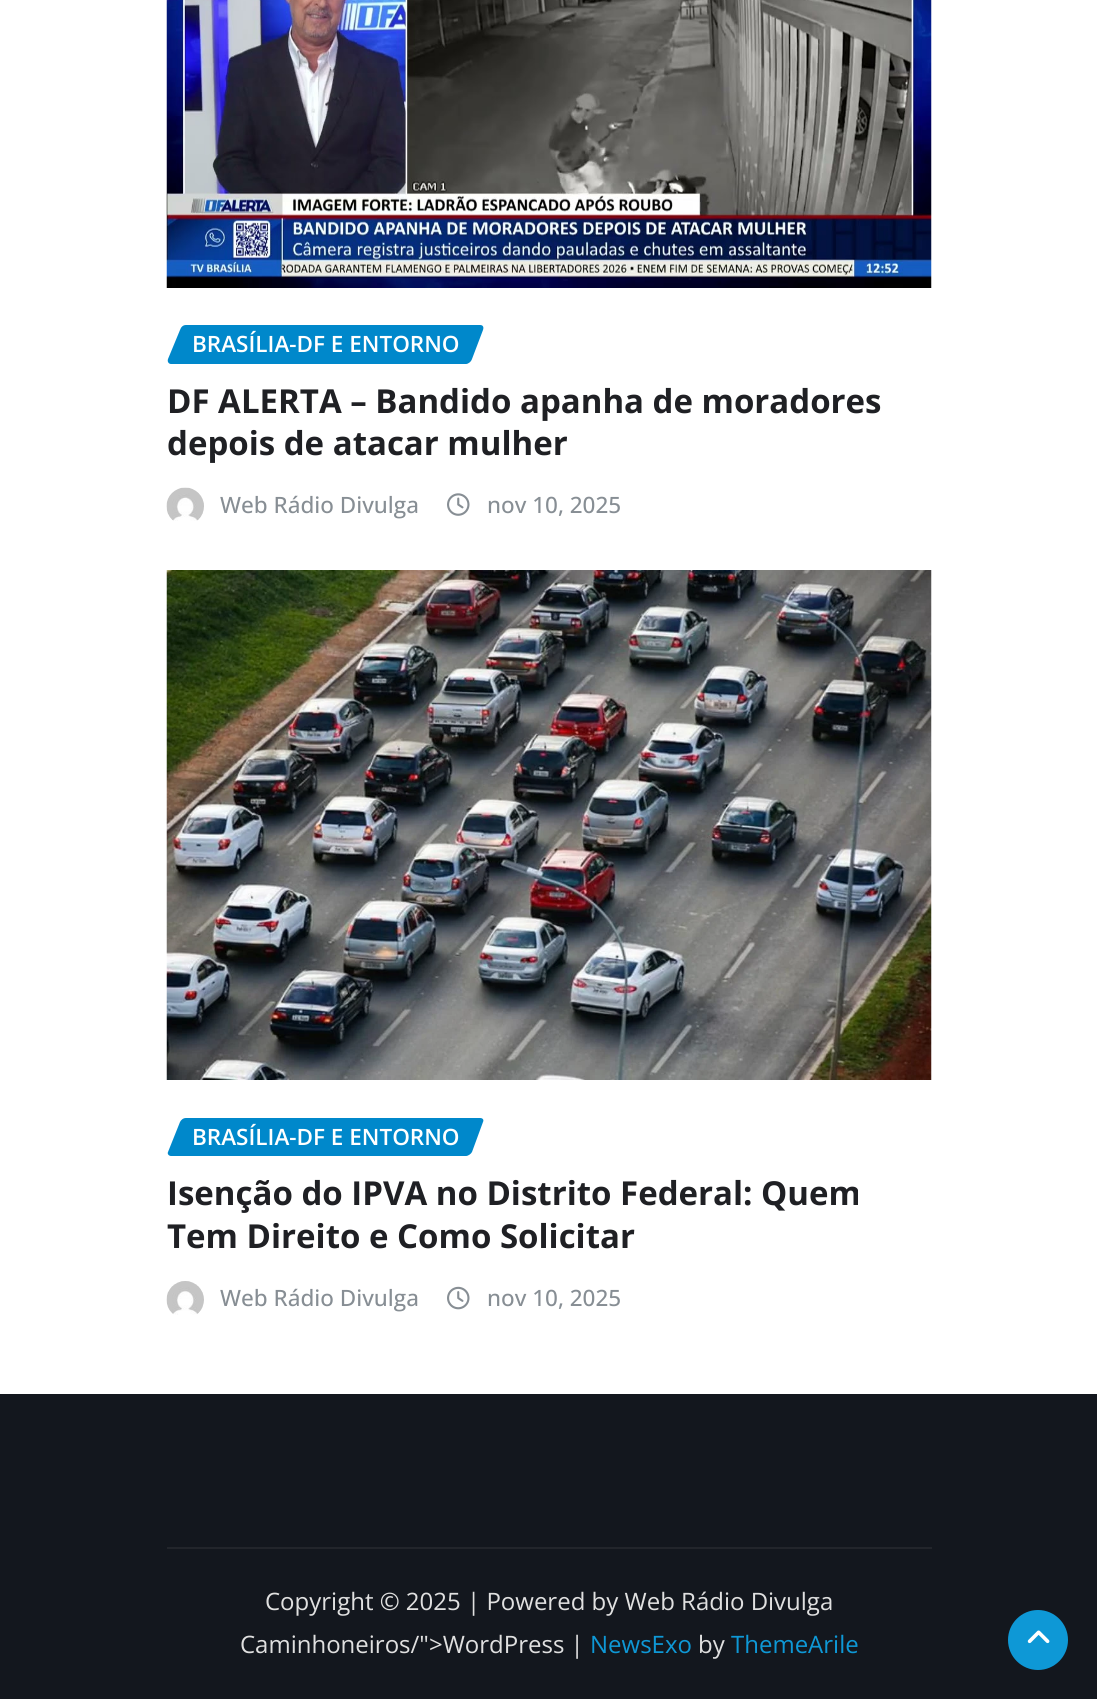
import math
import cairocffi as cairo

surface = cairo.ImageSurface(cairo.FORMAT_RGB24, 1097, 1699)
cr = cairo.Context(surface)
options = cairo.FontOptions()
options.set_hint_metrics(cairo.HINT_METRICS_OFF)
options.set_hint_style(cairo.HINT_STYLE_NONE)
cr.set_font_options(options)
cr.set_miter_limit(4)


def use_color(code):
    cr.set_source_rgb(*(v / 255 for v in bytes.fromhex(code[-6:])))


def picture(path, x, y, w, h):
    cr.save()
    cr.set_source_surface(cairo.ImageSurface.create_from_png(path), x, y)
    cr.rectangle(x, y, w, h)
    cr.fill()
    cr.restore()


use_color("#ffffff")
cr.paint()
picture("img1.png", 166, 0, 766, 288)
use_color("#0088cb")
cr.new_path()
cr.move_to(186, 325)
cr.line_to(480, 325)
cr.curve_to(483, 325, 484, 327, 483, 330)
cr.line_to(472, 359)
cr.curve_to(471, 362, 468, 364, 466, 364)
cr.line_to(171, 364)
cr.curve_to(169, 364, 167, 362, 168, 359)
cr.line_to(180, 330)
cr.curve_to(181, 327, 183, 325, 186, 325)
cr.close_path()
cr.fill()
cr.select_font_face("Open Sans SemiBold")
cr.set_font_size(22.5)
use_color("#ffffff")
cr.move_to(192, 352)
cr.show_text("BRASÍLIA-DF E ENTORNO")
cr.select_font_face("Open Sans", cairo.FONT_SLANT_NORMAL, cairo.FONT_WEIGHT_BOLD)
cr.set_font_size(33)
use_color("#1f2024")
cr.move_to(167, 413)
cr.show_text("DF ALERTA – Bandido apanha de moradores")
cr.move_to(167, 455)
cr.show_text("depois de atacar mulher")
picture("img2.png", 166, 487, 38, 34)
cr.select_font_face("Open Sans Medium")
cr.set_font_size(22.5)
use_color("#878e94")
cr.move_to(220, 513)
cr.show_text("Web Rádio Divulga")
picture("img3.png", 447, 493, 23, 23)
cr.move_to(487, 513)
cr.show_text("nov 10, 2025")
picture("img4.png", 166, 570, 766, 510)
use_color("#0088cb")
cr.new_path()
cr.move_to(186, 1118)
cr.line_to(480, 1118)
cr.curve_to(483, 1118, 484, 1120, 483, 1122)
cr.line_to(472, 1152)
cr.curve_to(471, 1154, 468, 1156, 466, 1156)
cr.line_to(171, 1156)
cr.curve_to(169, 1156, 167, 1154, 168, 1152)
cr.line_to(180, 1122)
cr.curve_to(181, 1120, 183, 1118, 186, 1118)
cr.close_path()
cr.fill()
cr.select_font_face("Open Sans SemiBold")
use_color("#ffffff")
cr.move_to(192, 1145)
cr.show_text("BRASÍLIA-DF E ENTORNO")
cr.select_font_face("Open Sans", cairo.FONT_SLANT_NORMAL, cairo.FONT_WEIGHT_BOLD)
cr.set_font_size(33)
use_color("#1f2024")
cr.move_to(167, 1205)
cr.show_text("Isenção do IPVA no Distrito Federal: Quem")
cr.move_to(167, 1248)
cr.show_text("Tem Direito e Como Solicitar")
picture("img5.png", 166, 1281, 38, 34)
cr.select_font_face("Open Sans Medium")
cr.set_font_size(22.5)
use_color("#878e94")
cr.move_to(220, 1306)
cr.show_text("Web Rádio Divulga")
picture("img6.png", 447, 1286, 23, 24)
cr.move_to(487, 1306)
cr.show_text("nov 10, 2025")
use_color("#13171e")
cr.rectangle(0, 1394, 1097, 305)
cr.fill()
use_color("#22252b")
cr.rectangle(167, 1547, 765, 2)
cr.fill()
cr.select_font_face("Open Sans")
cr.set_font_size(24)
use_color("#e0e0e0")
cr.move_to(265, 1610)
cr.show_text("Copyright © 2025 | Powered by Web Rádio Divulga")
cr.move_to(240, 1653)
cr.show_text("Caminhoneiros/\">WordPress |")
use_color("#0e98d6")
cr.move_to(590, 1653)
cr.show_text("NewsExo")
use_color("#e0e0e0")
cr.move_to(698, 1653)
cr.show_text("by")
use_color("#0e98d6")
cr.move_to(731, 1653)
cr.show_text("ThemeArile")
cr.new_path()
cr.arc(1038, 1640, 30, 0, 2 * math.pi)
cr.fill()
picture("img7.png", 1027, 1630, 23, 14)
surface.write_to_png("result.png")
